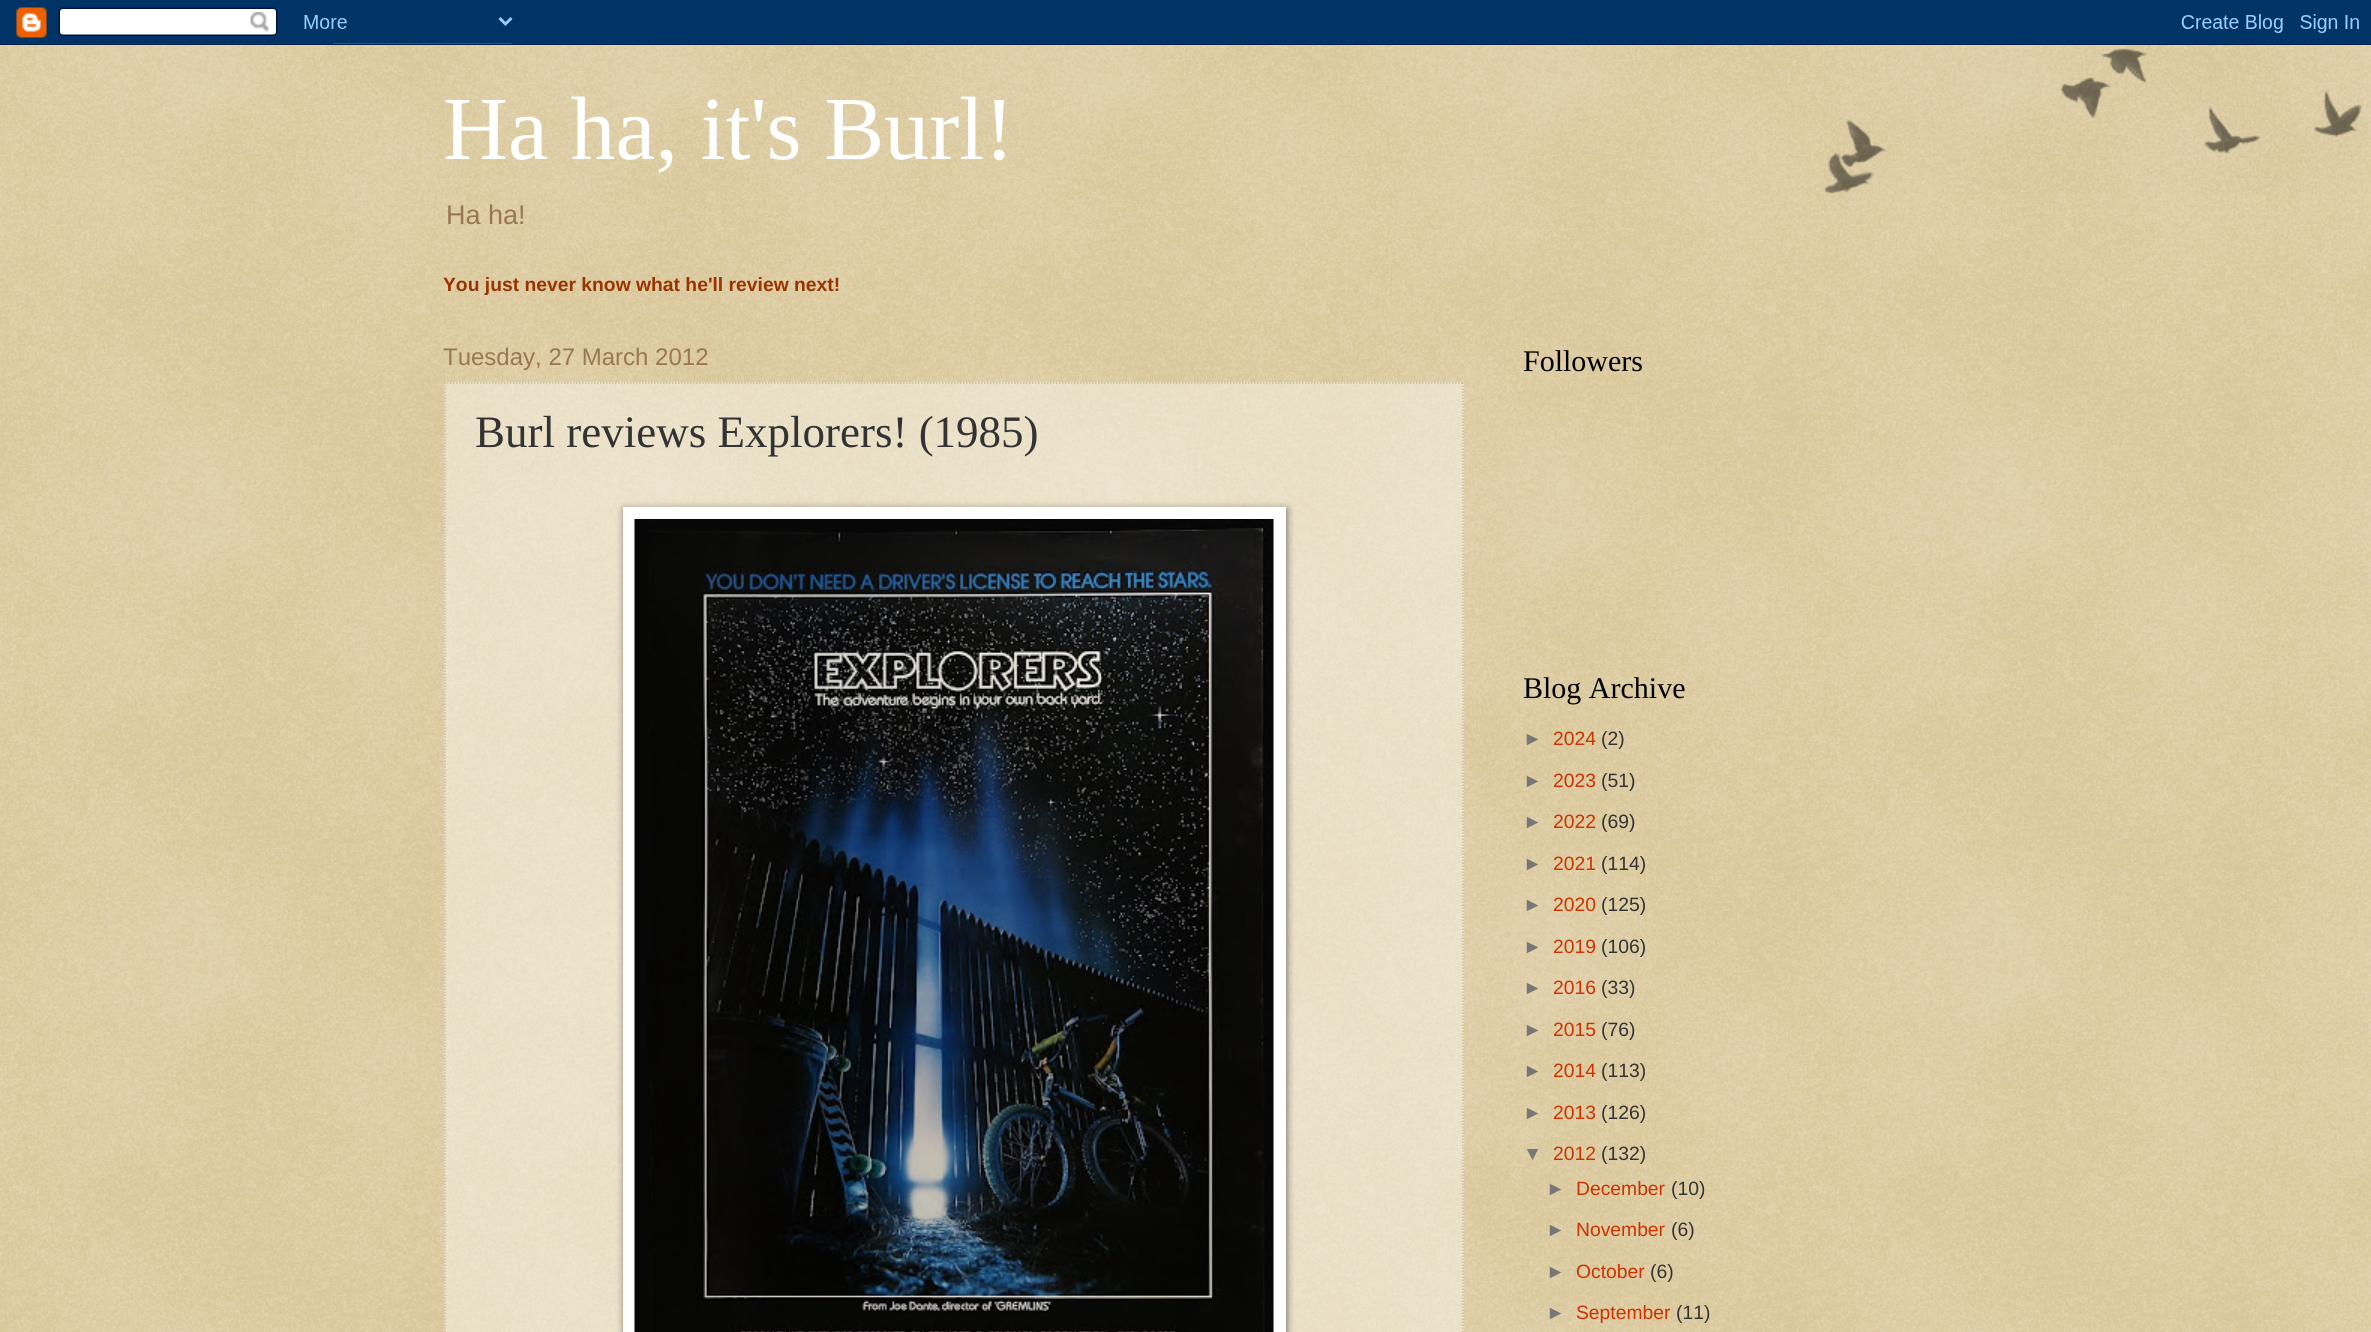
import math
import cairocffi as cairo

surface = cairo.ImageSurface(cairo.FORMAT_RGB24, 2371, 1332)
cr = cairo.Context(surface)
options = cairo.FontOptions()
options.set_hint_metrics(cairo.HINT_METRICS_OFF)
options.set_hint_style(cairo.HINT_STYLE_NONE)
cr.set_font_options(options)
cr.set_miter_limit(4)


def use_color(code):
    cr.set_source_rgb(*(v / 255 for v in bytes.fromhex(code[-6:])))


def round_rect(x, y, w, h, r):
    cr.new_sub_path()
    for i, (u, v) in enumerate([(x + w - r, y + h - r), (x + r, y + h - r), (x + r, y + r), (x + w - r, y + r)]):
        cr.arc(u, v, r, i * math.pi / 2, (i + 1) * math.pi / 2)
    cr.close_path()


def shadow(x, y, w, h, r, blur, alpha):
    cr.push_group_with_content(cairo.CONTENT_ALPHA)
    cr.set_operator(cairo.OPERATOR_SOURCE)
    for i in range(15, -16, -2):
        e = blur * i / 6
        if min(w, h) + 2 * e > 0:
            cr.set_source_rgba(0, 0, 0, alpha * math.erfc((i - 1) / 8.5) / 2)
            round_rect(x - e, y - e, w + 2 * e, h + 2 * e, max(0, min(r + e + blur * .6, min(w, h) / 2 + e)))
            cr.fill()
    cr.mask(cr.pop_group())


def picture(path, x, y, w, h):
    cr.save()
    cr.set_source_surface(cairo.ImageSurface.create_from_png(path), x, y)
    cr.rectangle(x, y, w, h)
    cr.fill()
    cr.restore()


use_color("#c0a154")
cr.paint()
picture("img1.png", 0, 43, 2371, 1289)
picture("img2.png", 0, 0, 2371, 45)
cr.select_font_face("Liberation Serif")
cr.set_font_size(90)
use_color("#ffffff")
cr.move_to(443, 159)
cr.show_text("Ha ha, it's Burl!")
cr.select_font_face("Liberation Sans")
cr.set_font_size(27)
use_color("#997755")
cr.move_to(446, 224)
cr.show_text("Ha ha!")
cr.select_font_face("Liberation Sans", cairo.FONT_SLANT_NORMAL, cairo.FONT_WEIGHT_BOLD)
cr.set_font_size(19.3)
use_color("#993300")
cr.move_to(443, 291)
cr.show_text("You just never know what he'll review next!")
cr.select_font_face("Liberation Sans")
cr.set_font_size(24)
use_color("#997755")
cr.move_to(443, 365)
cr.show_text("Tuesday, 27 March 2012")
cr.set_source_rgba(1, 1, 1, 0.4)
cr.rectangle(444, 382, 1020, 950)
cr.fill()
cr.new_path()
cr.move_to(444, 383)
cr.line_to(1464, 383)
use_color("#ccbb99")
cr.set_line_width(1.5)
cr.set_dash([1.5, 1.5])
cr.stroke()
cr.new_path()
cr.move_to(1463, 382.5)
cr.line_to(1463, 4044)
cr.stroke()
cr.new_path()
cr.move_to(445, 382.5)
cr.line_to(445, 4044)
cr.stroke()
cr.select_font_face("Liberation Serif")
cr.set_font_size(45)
use_color("#333333")
cr.move_to(475, 447)
cr.show_text("Burl reviews Explorers! (1985)")
use_color("#000000")
shadow(624, 509, 663, 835, 0, 4, 0.5)
use_color("#ffffff")
cr.rectangle(623, 507, 663, 825)
cr.fill()
picture("img3.png", 634, 519, 640, 813)
cr.set_font_size(30)
use_color("#000000")
cr.move_to(1523, 371)
cr.show_text("Followers")
cr.move_to(1523, 698)
cr.show_text("Blog Archive")
cr.select_font_face("Liberation Sans")
cr.set_font_size(19.3)
use_color("#777777")
cr.move_to(1523, 745)
cr.show_text("►")
use_color("#cc3300")
cr.move_to(1553, 745)
cr.show_text("2024")
use_color("#333333")
cr.move_to(1601, 745)
cr.show_text("(2)")
use_color("#777777")
cr.move_to(1523, 787)
cr.show_text("►")
use_color("#cc3300")
cr.move_to(1553, 787)
cr.show_text("2023")
use_color("#333333")
cr.move_to(1601, 787)
cr.show_text("(51)")
use_color("#777777")
cr.move_to(1523, 828)
cr.show_text("►")
use_color("#cc3300")
cr.move_to(1553, 828)
cr.show_text("2022")
use_color("#333333")
cr.move_to(1601, 828)
cr.show_text("(69)")
use_color("#777777")
cr.move_to(1523, 870)
cr.show_text("►")
use_color("#cc3300")
cr.move_to(1553, 870)
cr.show_text("2021")
use_color("#333333")
cr.move_to(1601, 870)
cr.show_text("(114)")
use_color("#777777")
cr.move_to(1523, 911)
cr.show_text("►")
use_color("#cc3300")
cr.move_to(1553, 911)
cr.show_text("2020")
use_color("#333333")
cr.move_to(1601, 911)
cr.show_text("(125)")
use_color("#777777")
cr.move_to(1523, 953)
cr.show_text("►")
use_color("#cc3300")
cr.move_to(1553, 953)
cr.show_text("2019")
use_color("#333333")
cr.move_to(1601, 953)
cr.show_text("(106)")
use_color("#777777")
cr.move_to(1523, 994)
cr.show_text("►")
use_color("#cc3300")
cr.move_to(1553, 994)
cr.show_text("2016")
use_color("#333333")
cr.move_to(1601, 994)
cr.show_text("(33)")
use_color("#777777")
cr.move_to(1523, 1036)
cr.show_text("►")
use_color("#cc3300")
cr.move_to(1553, 1036)
cr.show_text("2015")
use_color("#333333")
cr.move_to(1601, 1036)
cr.show_text("(76)")
use_color("#777777")
cr.move_to(1523, 1077)
cr.show_text("►")
use_color("#cc3300")
cr.move_to(1553, 1077)
cr.show_text("2014")
use_color("#333333")
cr.move_to(1601, 1077)
cr.show_text("(113)")
use_color("#777777")
cr.move_to(1523, 1119)
cr.show_text("►")
use_color("#cc3300")
cr.move_to(1553, 1119)
cr.show_text("2013")
use_color("#333333")
cr.move_to(1601, 1119)
cr.show_text("(126)")
use_color("#777777")
cr.move_to(1523, 1160)
cr.show_text("▼")
use_color("#cc3300")
cr.move_to(1553, 1160)
cr.show_text("2012")
use_color("#333333")
cr.move_to(1601, 1160)
cr.show_text("(132)")
use_color("#777777")
cr.move_to(1546, 1195)
cr.show_text("►")
use_color("#cc3300")
cr.move_to(1576, 1195)
cr.show_text("December")
use_color("#333333")
cr.move_to(1671, 1195)
cr.show_text("(10)")
use_color("#777777")
cr.move_to(1546, 1236)
cr.show_text("►")
use_color("#cc3300")
cr.move_to(1576, 1236)
cr.show_text("November")
use_color("#333333")
cr.move_to(1671, 1236)
cr.show_text("(6)")
use_color("#777777")
cr.move_to(1546, 1278)
cr.show_text("►")
use_color("#cc3300")
cr.move_to(1576, 1278)
cr.show_text("October")
use_color("#333333")
cr.move_to(1650, 1278)
cr.show_text("(6)")
use_color("#777777")
cr.move_to(1546, 1319)
cr.show_text("►")
use_color("#cc3300")
cr.move_to(1576, 1319)
cr.show_text("September")
use_color("#333333")
cr.move_to(1676, 1319)
cr.show_text("(11)")
picture("img4.png", 1824, 48, 539, 146)
surface.write_to_png("result.png")
